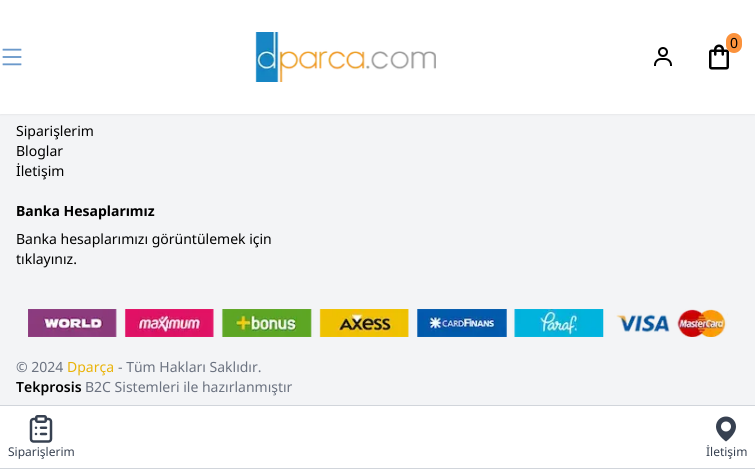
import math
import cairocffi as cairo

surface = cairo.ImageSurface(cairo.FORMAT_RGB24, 755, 469)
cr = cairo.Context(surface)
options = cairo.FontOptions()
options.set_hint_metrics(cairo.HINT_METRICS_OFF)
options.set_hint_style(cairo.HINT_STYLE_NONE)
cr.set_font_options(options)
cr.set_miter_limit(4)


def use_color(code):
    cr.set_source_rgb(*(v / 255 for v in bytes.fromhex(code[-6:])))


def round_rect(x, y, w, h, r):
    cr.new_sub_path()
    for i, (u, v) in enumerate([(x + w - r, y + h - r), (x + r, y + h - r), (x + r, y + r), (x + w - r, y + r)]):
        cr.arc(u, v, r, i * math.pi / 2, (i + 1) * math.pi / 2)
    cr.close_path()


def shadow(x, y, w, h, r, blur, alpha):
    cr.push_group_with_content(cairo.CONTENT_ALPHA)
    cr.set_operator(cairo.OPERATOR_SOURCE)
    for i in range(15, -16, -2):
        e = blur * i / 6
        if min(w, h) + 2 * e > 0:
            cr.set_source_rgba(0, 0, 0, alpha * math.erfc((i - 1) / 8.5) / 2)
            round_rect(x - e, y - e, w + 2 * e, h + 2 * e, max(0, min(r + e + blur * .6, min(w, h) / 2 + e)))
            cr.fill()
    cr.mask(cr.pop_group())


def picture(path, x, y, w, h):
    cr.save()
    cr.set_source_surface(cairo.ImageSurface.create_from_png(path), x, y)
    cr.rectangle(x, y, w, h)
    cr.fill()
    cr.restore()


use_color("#f3f4f6")
cr.paint()
use_color("#000000")
shadow(0, 1, 755, 114, 0, 1, 0.05)
use_color("#ffffff")
cr.rectangle(0, 0, 755, 114)
cr.fill()
picture("img1.png", 255, 32, 181, 50)
picture("img2.png", 709, 44, 20, 26)
use_color("#fb923c")
round_rect(726, 33, 16, 20, 8)
cr.fill()
cr.select_font_face("Noto Sans")
cr.set_font_size(14)
use_color("#000000")
cr.move_to(730, 48)
cr.show_text("0")
picture("img3.png", 654, 47, 18, 19)
picture("img4.png", 2, 48, 20, 18)
use_color("#ffffff")
cr.rectangle(0, 406, 755, 62)
cr.fill()
use_color("#d1d5db")
cr.rectangle(0, 405, 755, 1)
cr.fill()
cr.rectangle(0, 468, 755, 1)
cr.fill()
picture("img5.png", 29, 415, 24, 28)
cr.set_font_size(12)
use_color("#374151")
cr.move_to(8, 456)
cr.show_text("Siparişlerim")
picture("img6.png", 716, 416, 20, 26)
cr.move_to(706, 456)
cr.show_text("İletişim")
cr.set_font_size(14)
use_color("#000000")
cr.move_to(16, 136)
cr.show_text("Siparişlerim")
cr.move_to(16, 156)
cr.show_text("Bloglar")
cr.move_to(16, 176)
cr.show_text("İletişim")
cr.select_font_face("Noto Sans", cairo.FONT_SLANT_NORMAL, cairo.FONT_WEIGHT_BOLD)
cr.move_to(16, 216)
cr.show_text("Banka Hesaplarımız")
cr.select_font_face("Noto Sans")
cr.move_to(16, 244)
cr.show_text("Banka hesaplarımızı görüntülemek için")
cr.move_to(16, 264)
cr.show_text("tıklayınız.")
picture("img7.png", 28, 309, 700, 28)
use_color("#6b7280")
cr.move_to(16, 372)
cr.show_text("© 2024")
use_color("#eab308")
cr.move_to(67, 372)
cr.show_text("Dparça")
use_color("#6b7280")
cr.move_to(118, 372)
cr.show_text("- Tüm Hakları Saklıdır.")
cr.select_font_face("Noto Sans SemiBold")
use_color("#000000")
cr.move_to(16, 392)
cr.show_text("Tekprosis")
cr.select_font_face("Noto Sans")
use_color("#6b7280")
cr.move_to(85, 392)
cr.show_text("B2C Sistemleri ile hazırlanmıştır")
surface.write_to_png("result.png")
